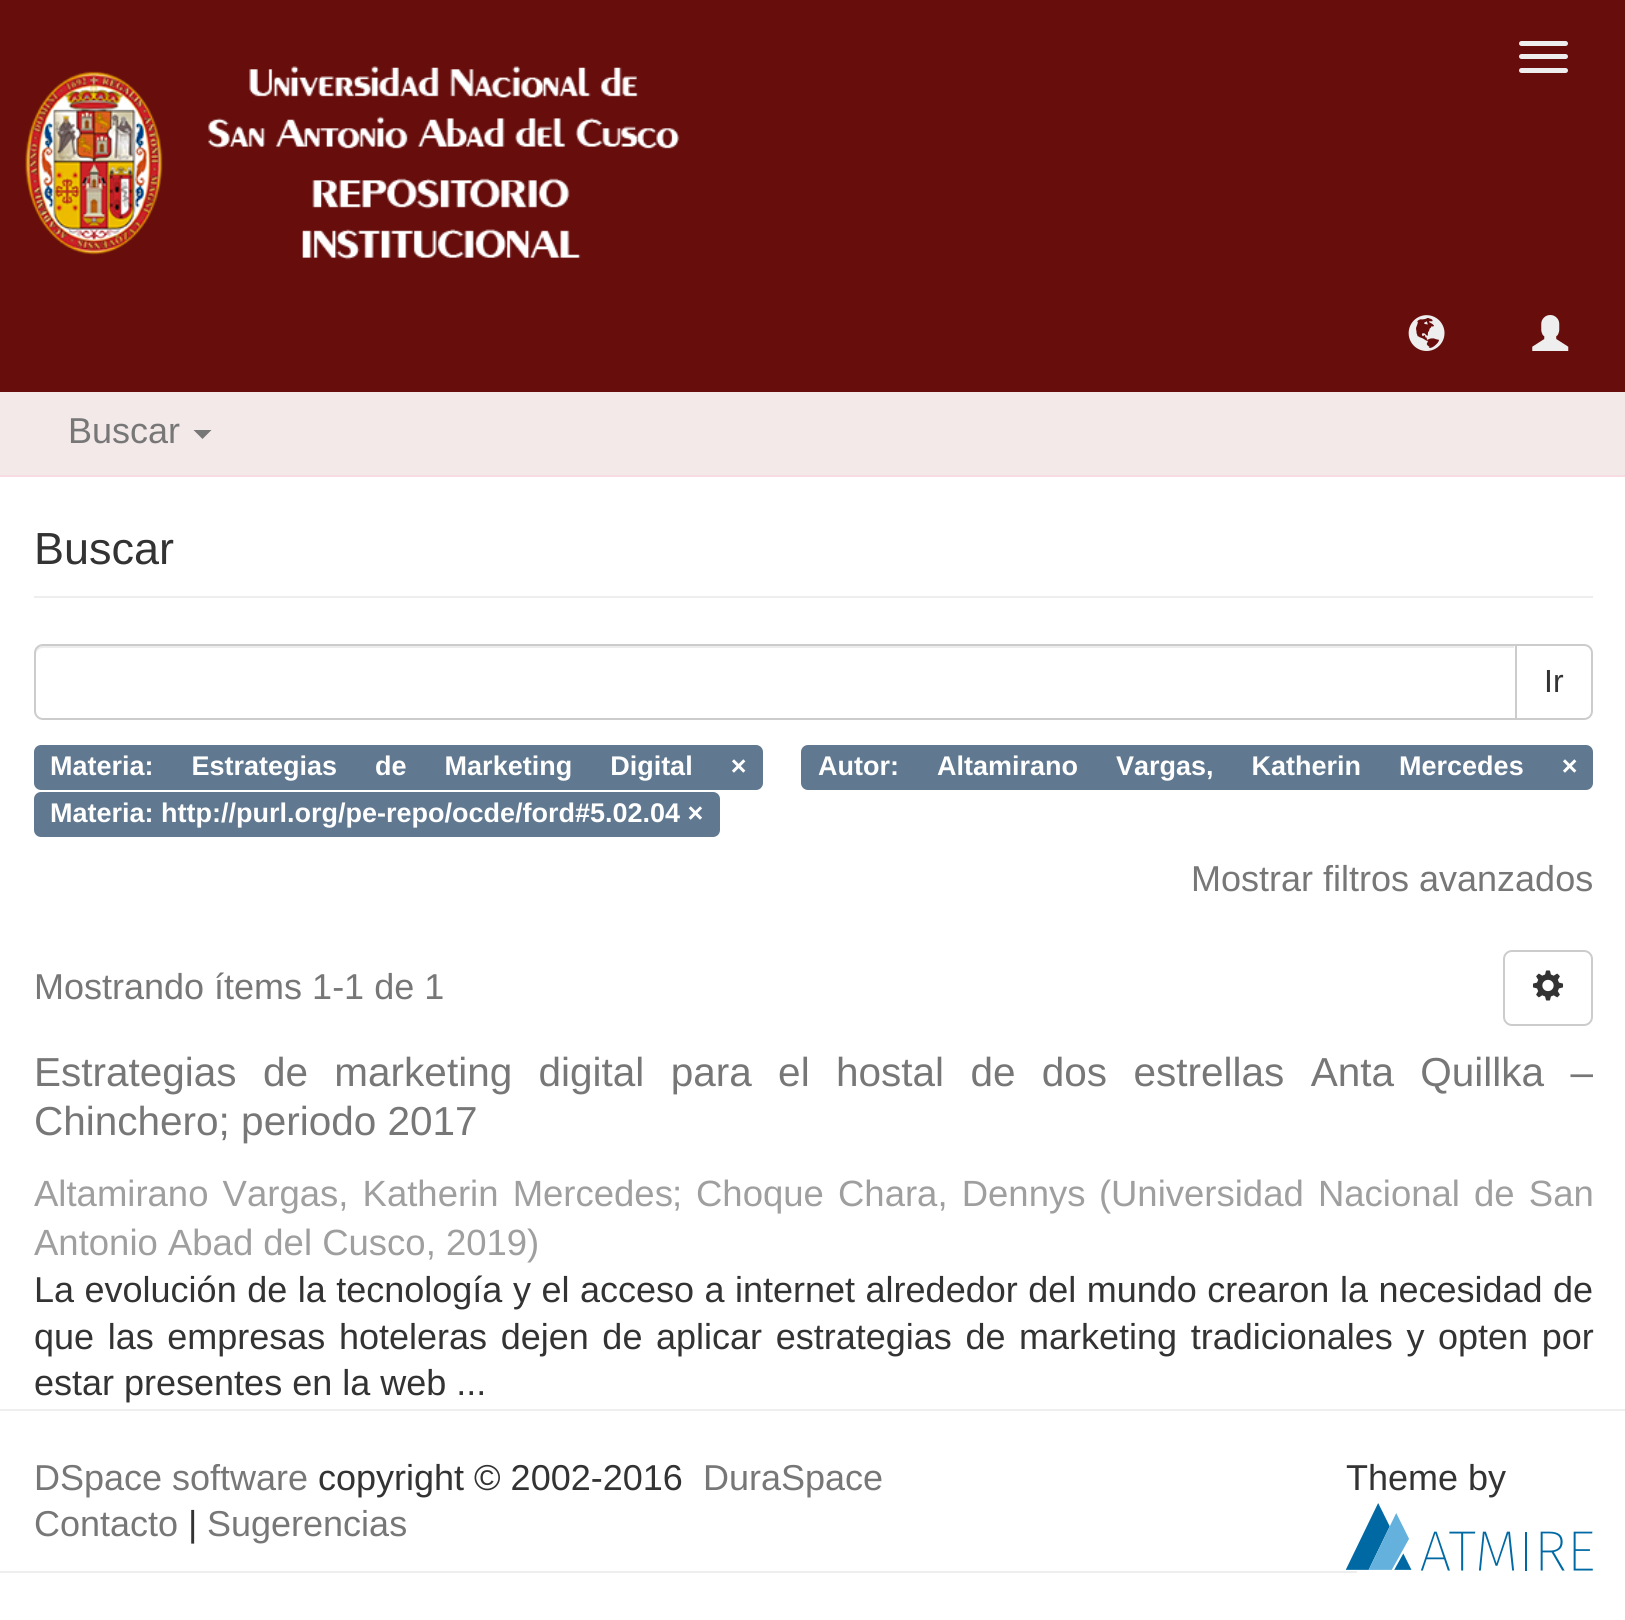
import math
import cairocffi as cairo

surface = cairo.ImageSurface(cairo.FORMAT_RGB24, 1625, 1620)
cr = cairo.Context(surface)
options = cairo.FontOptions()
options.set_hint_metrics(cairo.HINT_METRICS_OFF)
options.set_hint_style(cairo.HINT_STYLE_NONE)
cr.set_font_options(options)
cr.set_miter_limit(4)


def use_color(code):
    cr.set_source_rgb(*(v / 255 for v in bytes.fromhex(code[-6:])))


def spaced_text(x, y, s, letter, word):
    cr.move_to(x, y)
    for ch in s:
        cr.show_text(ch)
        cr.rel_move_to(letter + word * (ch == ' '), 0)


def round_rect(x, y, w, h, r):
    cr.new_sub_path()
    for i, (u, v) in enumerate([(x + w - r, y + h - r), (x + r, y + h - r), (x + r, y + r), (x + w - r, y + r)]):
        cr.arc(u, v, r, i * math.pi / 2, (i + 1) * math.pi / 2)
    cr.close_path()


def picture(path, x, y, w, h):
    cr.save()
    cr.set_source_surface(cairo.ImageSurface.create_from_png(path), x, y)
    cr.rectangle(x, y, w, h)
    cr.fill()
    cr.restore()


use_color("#f3e9e9")
cr.paint()
use_color("#670e0d")
cr.rectangle(0, 0, 1625, 392)
cr.fill()
use_color("#eeeeee")
round_rect(1519, 41, 49, 5, 2.5)
cr.fill()
round_rect(1519, 54, 49, 5, 2.5)
cr.fill()
round_rect(1519, 68, 49, 5, 2.5)
cr.fill()
picture("img1.png", 25, 66, 655, 194)
picture("img2.png", 1408, 315, 37, 36)
picture("img3.png", 1532, 315, 37, 36)
use_color("#f7dce3")
cr.rectangle(0, 475, 1625, 2)
cr.fill()
cr.select_font_face("Liberation Sans")
cr.set_font_size(36)
use_color("#777777")
cr.move_to(68, 443)
cr.show_text("Buscar")
cr.new_path()
cr.move_to(193.5, 430)
cr.line_to(211.5, 430)
cr.line_to(202.5, 439)
cr.close_path()
cr.fill()
use_color("#ffffff")
cr.rectangle(0, 477, 1625, 1143)
cr.fill()
use_color("#eeeeee")
cr.rectangle(34, 596, 1559, 2)
cr.fill()
cr.set_font_size(45)
use_color("#333333")
cr.move_to(34, 564)
cr.show_text("Buscar")
cr.new_path()
cr.move_to(1515, 645)
cr.line_to(1584, 645)
cr.curve_to(1588.5, 645, 1592, 648.5, 1592, 653)
cr.line_to(1592, 711)
cr.curve_to(1592, 715.5, 1588.5, 719, 1584, 719)
cr.line_to(1515, 719)
cr.close_path()
use_color("#cccccc")
cr.stroke()
use_color("#ffffff")
cr.new_path()
cr.move_to(43, 644)
cr.line_to(1517, 644)
cr.line_to(1517, 720)
cr.line_to(43, 720)
cr.curve_to(38, 720, 34, 716, 34, 711)
cr.line_to(34, 653)
cr.curve_to(34, 648, 38, 644, 43, 644)
cr.close_path()
cr.fill()
use_color("#ececec")
cr.new_path()
cr.move_to(43, 648)
cr.line_to(1514, 648)
cr.line_to(1514, 646)
cr.line_to(43, 646)
cr.curve_to(39, 646, 36, 649, 36, 653)
cr.line_to(36, 655)
cr.curve_to(36, 651, 39, 648, 43, 648)
cr.close_path()
cr.fill()
cr.new_path()
cr.move_to(43, 645)
cr.line_to(1516, 645)
cr.line_to(1516, 719)
cr.line_to(43, 719)
cr.curve_to(38.5, 719, 35, 715.5, 35, 711)
cr.line_to(35, 653)
cr.curve_to(35, 648.5, 38.5, 645, 43, 645)
cr.close_path()
use_color("#cccccc")
cr.stroke()
cr.set_font_size(32)
use_color("#333333")
cr.move_to(1544, 692)
cr.show_text("Ir")
use_color("#607890")
round_rect(34, 745, 729, 45, 7)
cr.fill()
cr.select_font_face("Liberation Sans", cairo.FONT_SLANT_NORMAL, cairo.FONT_WEIGHT_BOLD)
cr.set_font_size(27)
use_color("#ffffff")
spaced_text(50, 775, "Materia: Estrategias de Marketing Digital ×", 0, 30.5)
use_color("#607890")
round_rect(801, 745, 792, 45, 7)
cr.fill()
use_color("#ffffff")
spaced_text(818, 775, "Autor: Altamirano Vargas, Katherin Mercedes ×", 0, 30.5)
use_color("#607890")
round_rect(34, 792, 686, 45, 7)
cr.fill()
use_color("#ffffff")
cr.move_to(50, 822)
cr.show_text("Materia: http://purl.org/pe-repo/ocde/ford#5.02.04 ×")
cr.select_font_face("Liberation Sans")
cr.set_font_size(36)
use_color("#777777")
cr.move_to(1191, 891)
cr.show_text("Mostrar filtros avanzados")
cr.move_to(34, 999)
cr.show_text("Mostrando ítems 1-1 de 1")
round_rect(1504, 951, 88, 74, 8)
use_color("#cccccc")
cr.stroke()
picture("img4.png", 1532, 970, 32, 31)
cr.set_font_size(40.5)
use_color("#777777")
spaced_text(34, 1086, "Estrategias de marketing digital para el hostal de dos estrellas Anta Quillka –", 0, 15.1)
cr.move_to(34, 1135)
cr.show_text("Chinchero; periodo 2017")
cr.set_font_size(36.5)
use_color("#a09f9f")
spaced_text(34, 1206, "Altamirano Vargas, Katherin Mercedes", 0, 4)
cr.move_to(672, 1206)
cr.show_text(";")
spaced_text(696, 1206, "Choque Chara, Dennys", 0, 4)
cr.move_to(1099, 1206)
cr.show_text("(")
spaced_text(1111, 1206, "Universidad Nacional de San", 0, 4)
cr.move_to(34, 1255)
cr.show_text("Antonio Abad del Cusco, 2019)")
cr.set_font_size(36)
use_color("#333333")
spaced_text(34, 1302, "La evolución de la tecnología y el acceso a internet alrededor del mundo crearon la necesidad de", 0, 0.5)
spaced_text(34, 1349, "que las empresas hoteleras dejen de aplicar estrategias de marketing tradicionales y opten por", 0, 3.6)
cr.move_to(34, 1395)
cr.show_text("estar presentes en la web ...")
use_color("#eeeeee")
cr.rectangle(0, 1409, 1625, 2)
cr.fill()
use_color("#777777")
cr.move_to(34, 1490)
cr.show_text("DSpace software")
use_color("#333333")
cr.move_to(318, 1490)
cr.show_text("copyright © 2002-2016")
use_color("#777777")
cr.move_to(703, 1490)
cr.show_text("DuraSpace")
cr.move_to(34, 1536)
cr.show_text("Contacto")
use_color("#333333")
cr.move_to(188, 1536)
cr.show_text("|")
use_color("#777777")
cr.move_to(207, 1536)
cr.show_text("Sugerencias")
use_color("#333333")
cr.move_to(1346, 1490)
cr.show_text("Theme by")
picture("img5.png", 1346, 1503, 247, 68)
use_color("#eeeeee")
cr.rectangle(0, 1571, 1357, 2)
cr.fill()
surface.write_to_png("result.png")
